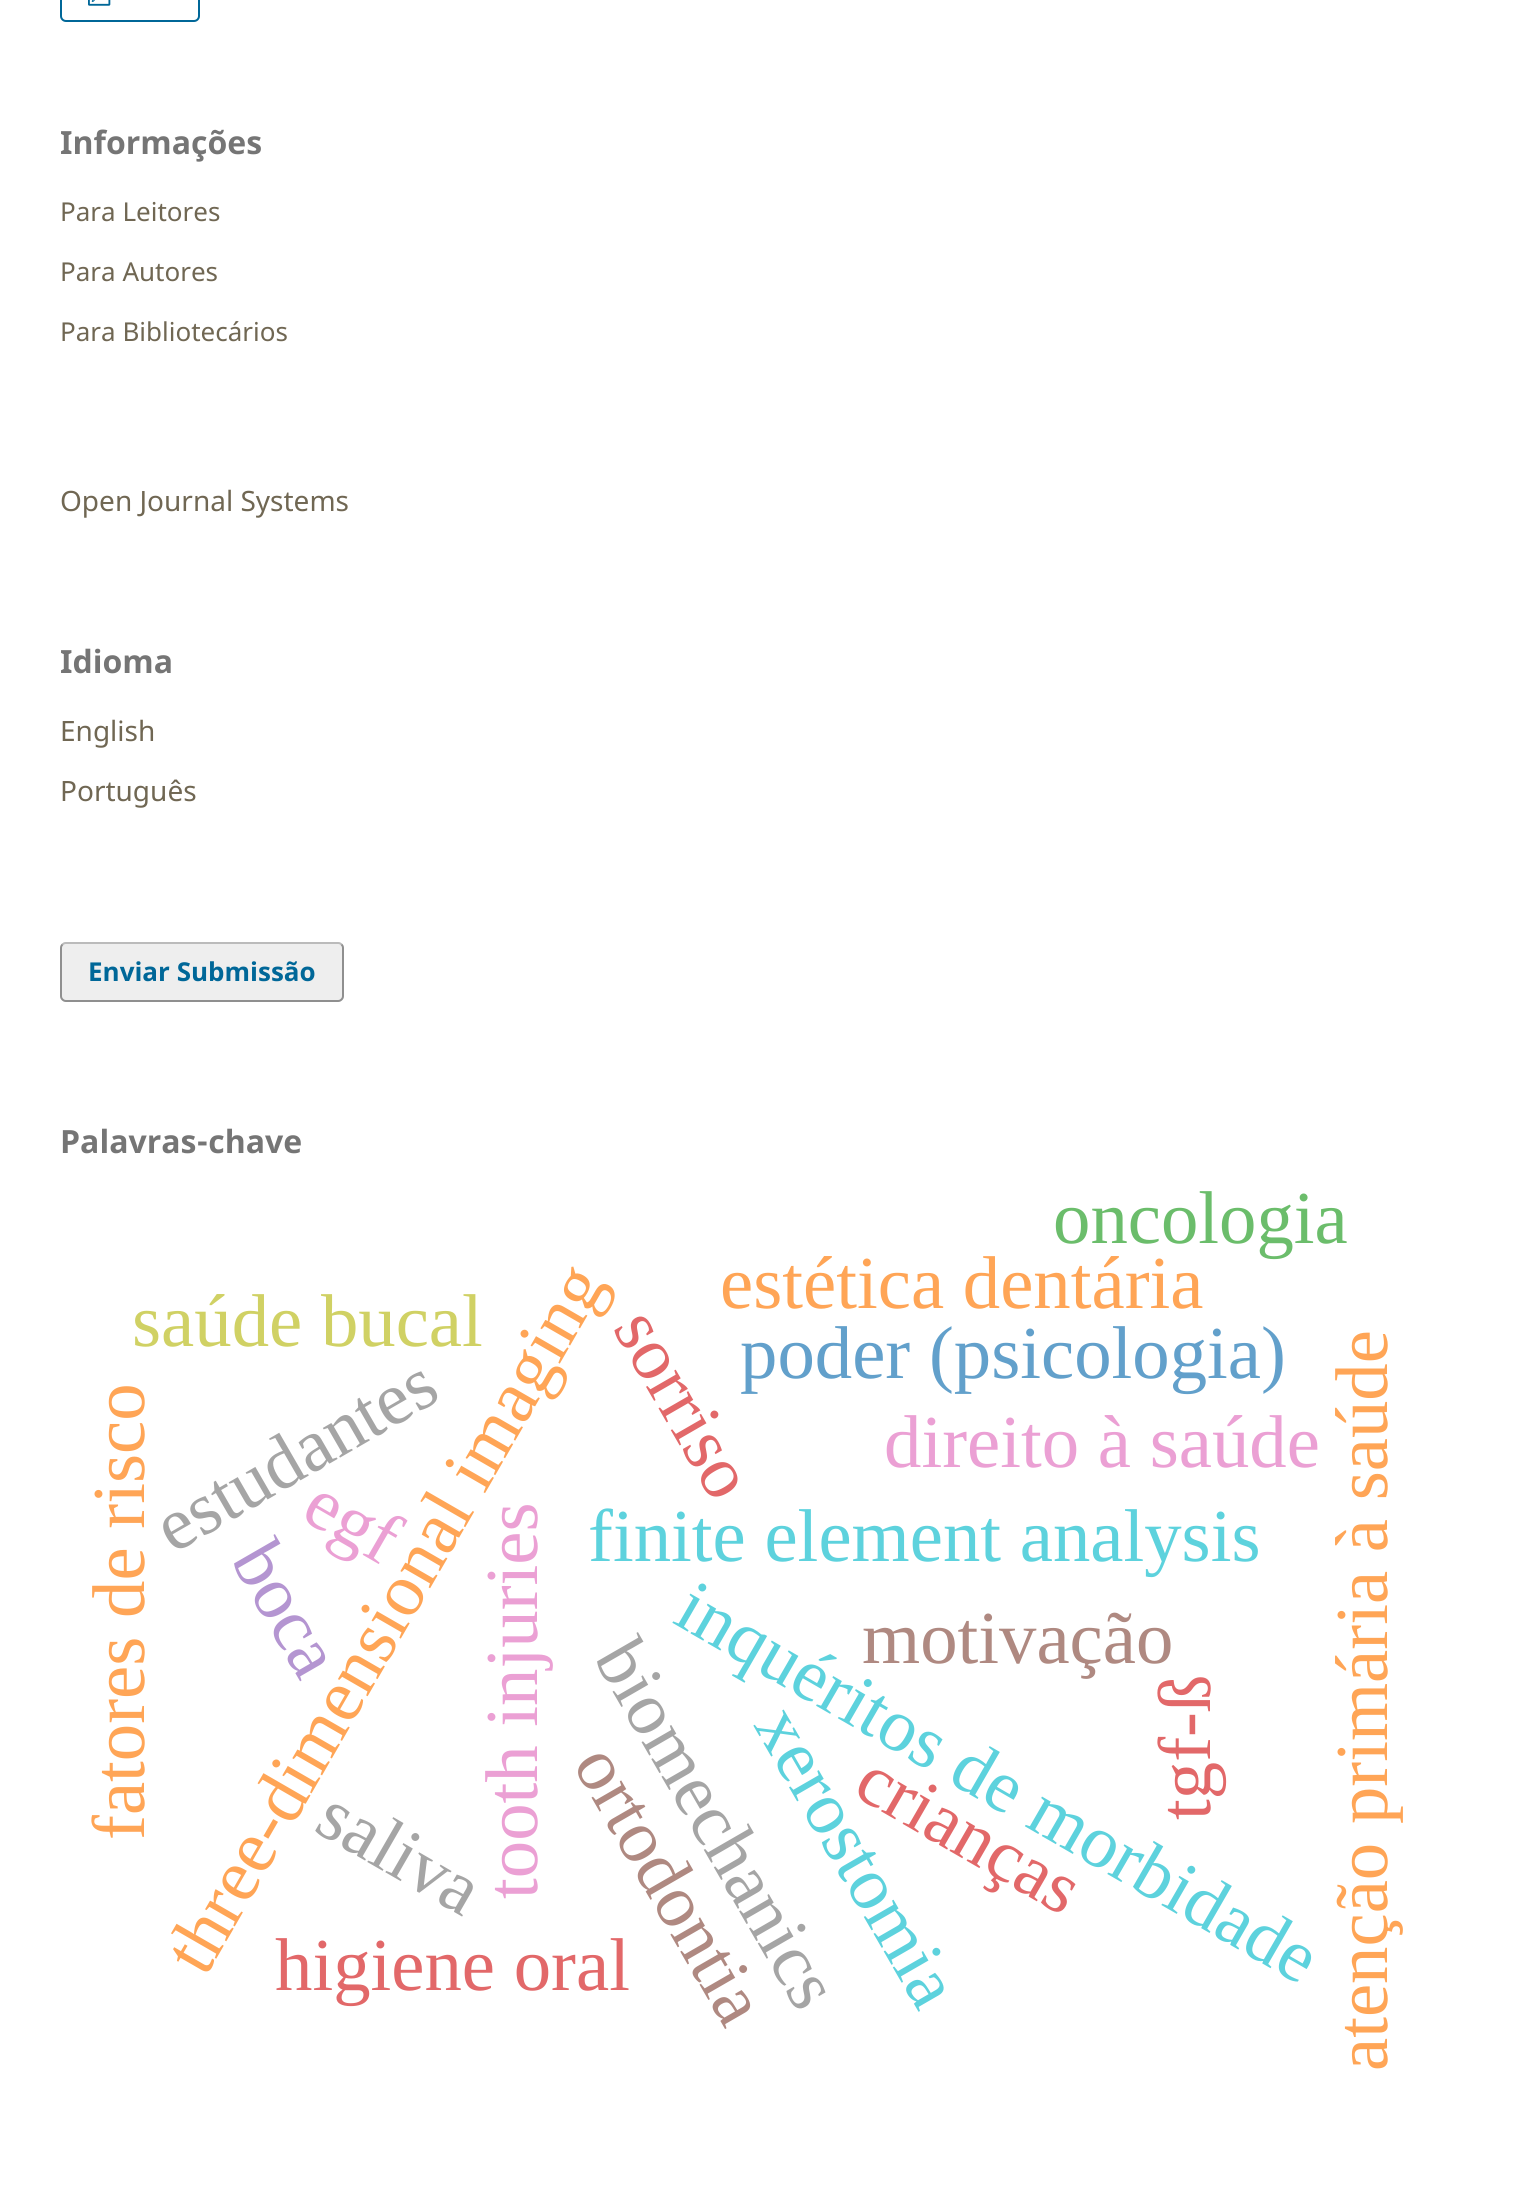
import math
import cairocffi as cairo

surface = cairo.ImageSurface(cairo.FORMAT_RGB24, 1522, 2185)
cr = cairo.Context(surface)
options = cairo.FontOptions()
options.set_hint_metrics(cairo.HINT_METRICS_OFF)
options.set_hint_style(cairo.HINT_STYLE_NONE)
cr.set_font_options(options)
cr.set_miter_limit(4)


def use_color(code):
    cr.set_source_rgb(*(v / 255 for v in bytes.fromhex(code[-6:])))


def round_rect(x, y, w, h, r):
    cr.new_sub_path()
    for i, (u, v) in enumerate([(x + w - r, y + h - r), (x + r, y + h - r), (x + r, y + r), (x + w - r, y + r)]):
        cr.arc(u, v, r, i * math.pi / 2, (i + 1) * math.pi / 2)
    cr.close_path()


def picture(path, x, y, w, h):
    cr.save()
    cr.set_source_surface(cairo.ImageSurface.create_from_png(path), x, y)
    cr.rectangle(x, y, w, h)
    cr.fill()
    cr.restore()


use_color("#ffffff")
cr.paint()
round_rect(61, -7, 138, 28, 5)
use_color("#006798")
cr.stroke()
picture("img1.png", 88, 0, 23, 6)
cr.select_font_face("Noto Sans", cairo.FONT_SLANT_NORMAL, cairo.FONT_WEIGHT_BOLD)
cr.set_font_size(32)
use_color("#757575")
cr.move_to(60, 154)
cr.show_text("Informações")
cr.select_font_face("Noto Sans")
cr.set_font_size(26)
use_color("#706753")
cr.move_to(60, 221)
cr.show_text("Para Leitores")
cr.move_to(60, 281)
cr.show_text("Para Autores")
cr.move_to(60, 341)
cr.show_text("Para Bibliotecários")
cr.set_font_size(28)
cr.move_to(60, 511)
cr.show_text("Open Journal Systems")
cr.select_font_face("Noto Sans", cairo.FONT_SLANT_NORMAL, cairo.FONT_WEIGHT_BOLD)
cr.set_font_size(32)
use_color("#757575")
cr.move_to(60, 673)
cr.show_text("Idioma")
cr.select_font_face("Noto Sans")
cr.set_font_size(28)
use_color("#706753")
cr.move_to(60, 741)
cr.show_text("English")
cr.move_to(60, 801)
cr.show_text("Português")
use_color("#eeeeee")
round_rect(60, 942, 284, 60, 6)
cr.fill()
cr.new_path()
cr.move_to(62.5, 944.5)
cr.curve_to(63.5, 943.5, 64.5, 943, 66, 943)
cr.line_to(338, 943)
cr.curve_to(339.5, 943, 340.5, 943.5, 341.5, 944.5)
use_color("#bbbbbb")
cr.stroke()
cr.new_path()
cr.move_to(341.5, 944.5)
cr.curve_to(342.5, 945.5, 343, 946.5, 343, 948)
cr.line_to(343, 996)
cr.curve_to(343, 997.5, 342.5, 998.5, 341.5, 999.5)
cr.curve_to(340.5, 1000.5, 339.5, 1001, 338, 1001)
cr.line_to(66, 1001)
cr.curve_to(64.5, 1001, 63.5, 1000.5, 62.5, 999.5)
cr.curve_to(61.5, 998.5, 61, 997.5, 61, 996)
cr.line_to(61, 948)
cr.curve_to(61, 946.5, 61.5, 945.5, 62.5, 944.5)
cr.set_source_rgba(0, 0, 0, 0.4)
cr.stroke()
cr.select_font_face("Noto Sans", cairo.FONT_SLANT_NORMAL, cairo.FONT_WEIGHT_BOLD)
cr.set_font_size(26)
use_color("#006798")
cr.move_to(88, 981)
cr.show_text("Enviar Submissão")
cr.set_font_size(32)
use_color("#757575")
cr.move_to(60, 1153)
cr.show_text("Palavras-chave")
cr.select_font_face("Liberation Serif")
cr.set_font_size(74.75)
use_color("#6bbd6b")
cr.move_to(1053, 1243)
cr.show_text("oncologia")
use_color("#eba0d4")
cr.save()
cr.translate(537, 1899)
cr.rotate(-90 * math.pi / 180)
cr.move_to(0, 0)
cr.show_text("tooth injuries")
cr.restore()
use_color("#5dd2dd")
cr.move_to(588, 1561)
cr.show_text("finite element analysis")
use_color("#a5a5a5")
cr.save()
cr.translate(593, 1658)
cr.rotate(60 * math.pi / 180)
cr.move_to(0, 0)
cr.show_text("biomechanics")
cr.restore()
use_color("#ffa556")
cr.save()
cr.translate(205, 1978)
cr.rotate(-60 * math.pi / 180)
cr.move_to(0, 0)
cr.show_text("three-dimensional imaging")
cr.restore()
cr.move_to(720, 1308)
cr.show_text("estética dentária")
use_color("#d0d164")
cr.move_to(132, 1346)
cr.show_text("saúde bucal")
use_color("#e26869")
cr.save()
cr.translate(612, 1328)
cr.rotate(60 * math.pi / 180)
cr.move_to(0, 0)
cr.show_text("sorriso")
cr.restore()
use_color("#62a0cb")
cr.move_to(740, 1378)
cr.show_text("poder (psicologia)")
use_color("#ffa556")
cr.save()
cr.translate(1387, 2071)
cr.rotate(-90 * math.pi / 180)
cr.move_to(0, 0)
cr.show_text("atenção primária à saúde")
cr.restore()
cr.save()
cr.translate(144, 1840)
cr.rotate(-90 * math.pi / 180)
cr.move_to(0, 0)
cr.show_text("fatores de risco")
cr.restore()
use_color("#a5a5a5")
cr.save()
cr.translate(173, 1554)
cr.rotate(-30 * math.pi / 180)
cr.move_to(0, 0)
cr.show_text("estudantes")
cr.restore()
use_color("#eba0d4")
cr.move_to(884, 1467)
cr.show_text("direito à saúde")
cr.save()
cr.translate(299, 1518)
cr.rotate(30 * math.pi / 180)
cr.move_to(0, 0)
cr.show_text("egf")
cr.restore()
use_color("#b495d1")
cr.save()
cr.translate(230, 1560)
cr.rotate(60 * math.pi / 180)
cr.move_to(0, 0)
cr.show_text("boca")
cr.restore()
use_color("#5dd2dd")
cr.save()
cr.translate(671, 1622)
cr.rotate(30 * math.pi / 180)
cr.move_to(0, 0)
cr.show_text("inquéritos de morbidade")
cr.restore()
cr.save()
cr.translate(753, 1725)
cr.rotate(60 * math.pi / 180)
cr.move_to(0, 0)
cr.show_text("xerostomia")
cr.restore()
use_color("#af8981")
cr.move_to(862, 1663)
cr.show_text("motivação")
use_color("#e26869")
cr.save()
cr.translate(1210, 1820)
cr.rotate(-90 * math.pi / 180)
cr.move_to(0, 0)
cr.show_text("tgf-ß")
cr.restore()
use_color("#a5a5a5")
cr.save()
cr.translate(312, 1830)
cr.rotate(30 * math.pi / 180)
cr.move_to(0, 0)
cr.show_text("saliva")
cr.restore()
use_color("#af8981")
cr.save()
cr.translate(572, 1764)
cr.rotate(60 * math.pi / 180)
cr.move_to(0, 0)
cr.show_text("ortodontia")
cr.restore()
use_color("#e26869")
cr.save()
cr.translate(851, 1794)
cr.rotate(30 * math.pi / 180)
cr.move_to(0, 0)
cr.show_text("crianças")
cr.restore()
cr.move_to(275, 1990)
cr.show_text("higiene oral")
surface.write_to_png("result.png")
